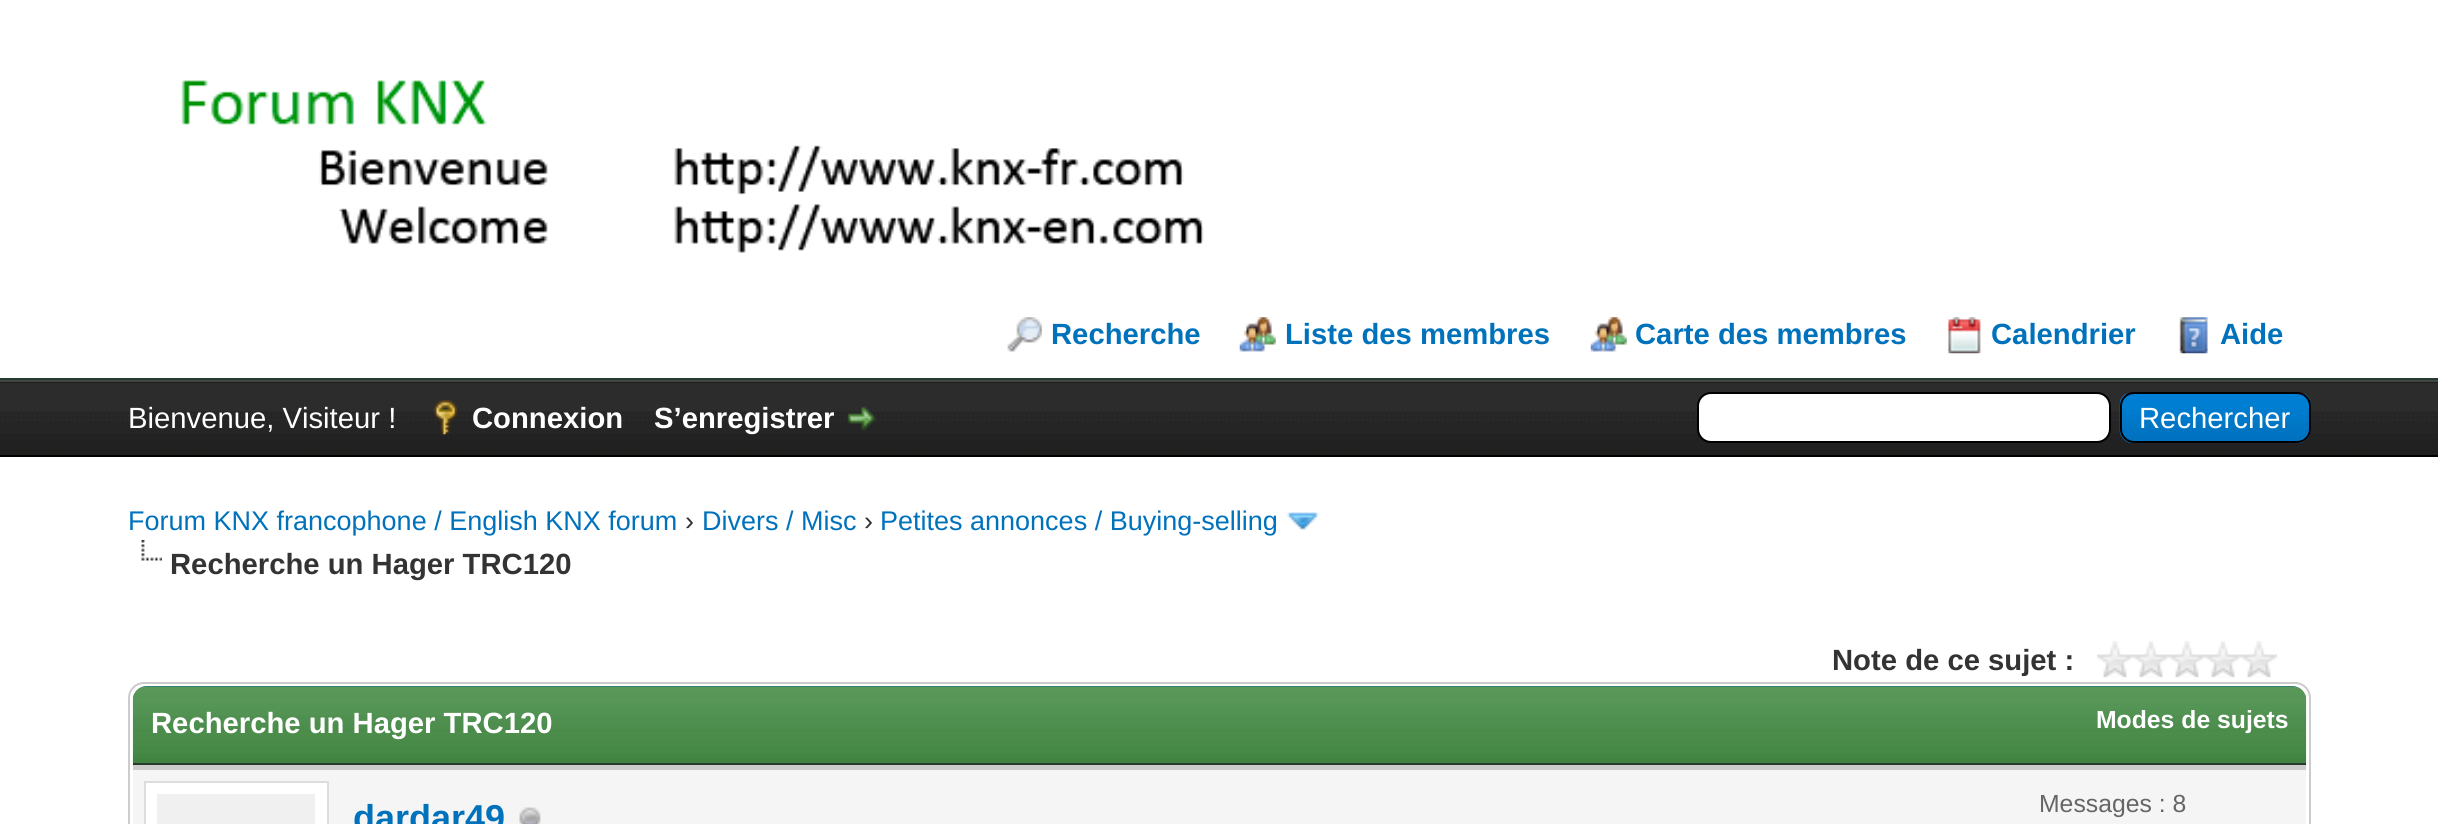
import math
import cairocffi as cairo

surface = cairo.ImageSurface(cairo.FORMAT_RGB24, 2438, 824)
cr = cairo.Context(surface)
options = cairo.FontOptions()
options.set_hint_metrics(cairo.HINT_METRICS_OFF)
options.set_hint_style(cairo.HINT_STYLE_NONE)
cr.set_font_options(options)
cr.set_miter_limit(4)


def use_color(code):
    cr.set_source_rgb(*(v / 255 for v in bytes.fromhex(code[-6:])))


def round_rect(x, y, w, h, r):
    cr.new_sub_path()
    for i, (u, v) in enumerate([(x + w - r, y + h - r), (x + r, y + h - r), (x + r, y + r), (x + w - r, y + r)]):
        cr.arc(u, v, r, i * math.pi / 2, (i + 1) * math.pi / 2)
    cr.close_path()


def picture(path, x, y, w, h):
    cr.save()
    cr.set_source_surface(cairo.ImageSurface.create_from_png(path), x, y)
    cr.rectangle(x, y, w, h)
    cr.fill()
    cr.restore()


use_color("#ffffff")
cr.paint()
use_color("#263c30")
cr.rectangle(0, 378, 2438, 2)
cr.fill()
picture("img1.png", 181, 80, 1023, 173)
picture("img2.png", 1007, 317, 35, 35)
cr.select_font_face("Liberation Sans", cairo.FONT_SLANT_NORMAL, cairo.FONT_WEIGHT_BOLD)
cr.set_font_size(29.25)
use_color("#0072bc")
cr.move_to(1051, 344)
cr.show_text("Recherche")
picture("img3.png", 1239, 317, 37, 35)
cr.move_to(1285, 344)
cr.show_text("Liste des membres")
picture("img3.png", 1590, 317, 37, 35)
cr.move_to(1635, 344)
cr.show_text("Carte des membres")
picture("img4.png", 1948, 317, 33, 37)
cr.move_to(1991, 344)
cr.show_text("Calendrier")
picture("img5.png", 2179, 317, 29, 37)
cr.move_to(2220, 344)
cr.show_text("Aide")
use_color("#0f0f0f")
cr.rectangle(0, 382, 2438, 1)
cr.fill()
picture("img6.png", 0, 382, 2438, 73)
use_color("#444444")
cr.rectangle(0, 380, 2438, 2)
cr.fill()
use_color("#000000")
cr.rectangle(0, 455, 2438, 2)
cr.fill()
cr.select_font_face("Liberation Sans")
use_color("#ffffff")
cr.move_to(128, 428)
cr.show_text("Bienvenue, Visiteur !")
picture("img7.png", 433, 400, 25, 35)
cr.select_font_face("Liberation Sans", cairo.FONT_SLANT_NORMAL, cairo.FONT_WEIGHT_BOLD)
cr.move_to(472, 428)
cr.show_text("Connexion")
cr.move_to(654, 428)
cr.show_text("S’enregistrer")
picture("img8.png", 847, 406, 29, 25)
round_rect(1698, 393, 412, 49, 13)
cr.fill_preserve()
use_color("#000000")
cr.stroke()
picture("img9.png", 2119, 393, 192, 51)
round_rect(2121, 393, 189, 49, 13)
cr.stroke()
cr.select_font_face("Liberation Sans")
use_color("#ffffff")
cr.move_to(2139, 428)
cr.show_text("Rechercher")
cr.set_font_size(27)
use_color("#0072bc")
cr.move_to(128, 530)
cr.show_text("Forum KNX francophone / English KNX forum")
use_color("#333333")
cr.move_to(685, 530)
cr.show_text("›")
use_color("#0072bc")
cr.move_to(702, 530)
cr.show_text("Divers / Misc")
use_color("#333333")
cr.move_to(864, 530)
cr.show_text("›")
use_color("#0072bc")
cr.move_to(880, 530)
cr.show_text("Petites annonces / Buying-selling")
picture("img10.png", 1286, 512, 33, 18)
picture("img11.png", 141, 540, 21, 21)
cr.select_font_face("Liberation Sans", cairo.FONT_SLANT_NORMAL, cairo.FONT_WEIGHT_BOLD)
cr.set_font_size(29.25)
use_color("#333333")
cr.move_to(170, 574)
cr.show_text("Recherche un Hager TRC120")
cr.move_to(1832, 670)
cr.show_text("Note de ce sujet :")
picture("img12.png", 2097, 641, 180, 37)
round_rect(129, 683, 2181, 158, 15)
use_color("#cccccc")
cr.stroke()
use_color("#0066a2")
cr.new_path()
cr.move_to(147, 686)
cr.line_to(2292, 686)
cr.curve_to(2299.5, 686, 2306, 692.5, 2306, 700)
cr.line_to(2306, 765)
cr.line_to(133, 765)
cr.line_to(133, 700)
cr.curve_to(133, 692.5, 139.5, 686, 147, 686)
cr.close_path()
cr.fill()
picture("img13.png", 132, 686, 2175, 79)
use_color("#263c30")
cr.rectangle(133, 763, 2173, 2)
cr.fill()
use_color("#ffffff")
cr.move_to(151, 733)
cr.show_text("Recherche un Hager TRC120")
cr.set_font_size(24.75)
cr.move_to(2096, 728)
cr.show_text("Modes de sujets")
use_color("#f5f5f5")
cr.rectangle(133, 770, 2173, 54)
cr.fill()
use_color("#cccccc")
cr.rectangle(133, 765, 2173, 5)
cr.fill()
use_color("#ffffff")
cr.rectangle(145, 782, 183, 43)
cr.fill_preserve()
use_color("#dddddd")
cr.stroke()
use_color("#f0f0f0")
cr.rectangle(157, 794, 158, 30)
cr.fill()
cr.set_font_size(36)
use_color("#0072bc")
cr.move_to(353, 830)
cr.show_text("dardar49")
picture("img14.png", 519, 807, 22, 17)
cr.select_font_face("Liberation Sans")
cr.set_font_size(24.75)
use_color("#666666")
cr.move_to(2039, 812)
cr.show_text("Messages : 8")
surface.write_to_png("result.png")
